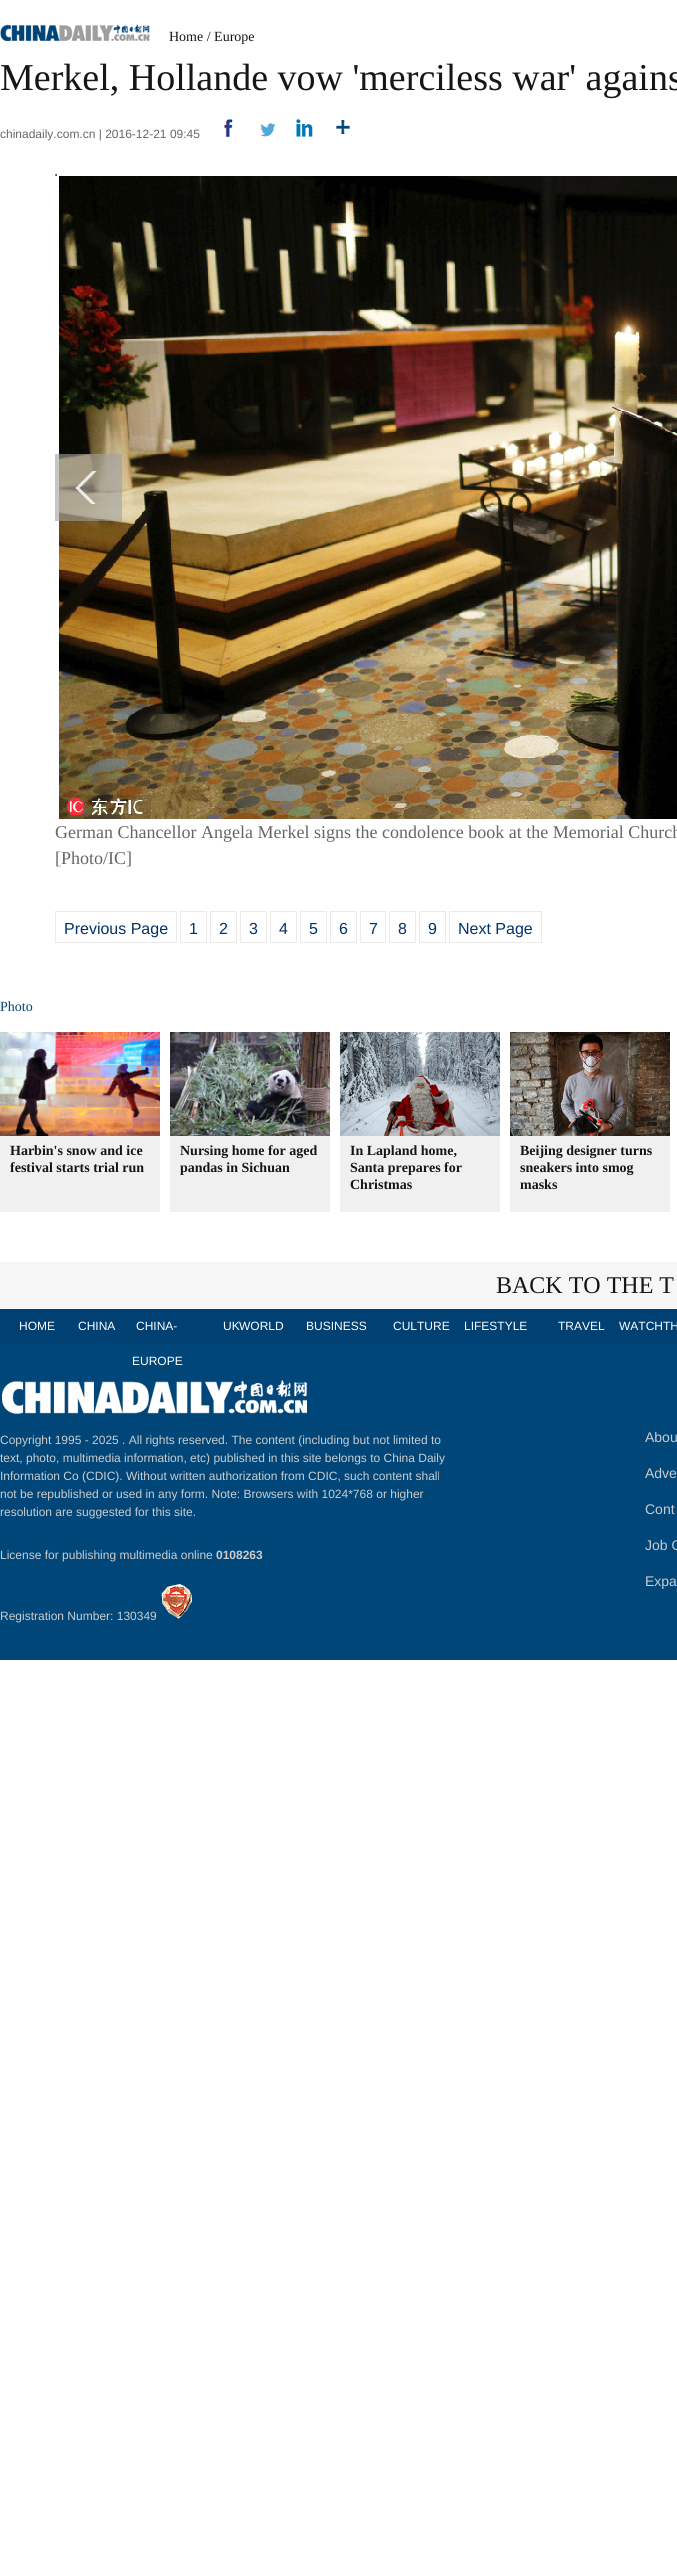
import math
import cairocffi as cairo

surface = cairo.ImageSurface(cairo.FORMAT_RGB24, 677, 2565)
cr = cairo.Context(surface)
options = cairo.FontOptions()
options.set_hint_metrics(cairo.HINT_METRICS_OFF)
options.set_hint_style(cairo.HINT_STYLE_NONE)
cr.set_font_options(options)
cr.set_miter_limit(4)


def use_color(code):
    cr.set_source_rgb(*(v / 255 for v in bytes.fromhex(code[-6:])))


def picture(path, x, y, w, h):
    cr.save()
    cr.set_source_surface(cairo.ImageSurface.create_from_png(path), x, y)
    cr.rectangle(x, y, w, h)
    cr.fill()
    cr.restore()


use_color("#ffffff")
cr.paint()
picture("img1.png", 0, 24, 150, 17)
cr.select_font_face("Liberation Serif")
cr.set_font_size(14)
use_color("#161616")
cr.move_to(169, 41)
cr.show_text("Home / Europe")
cr.set_font_size(38)
cr.move_to(0, 90)
cr.show_text("Merkel, Hollande vow 'merciless war' agains")
cr.select_font_face("Liberation Sans")
cr.set_font_size(12)
use_color("#666666")
cr.move_to(0, 138)
cr.show_text("chinadaily.com.cn | 2016-12-21 09:45")
picture("img2.png", 223, 119, 10, 18)
picture("img3.png", 260, 123, 16, 14)
picture("img4.png", 296, 119, 17, 18)
picture("img5.png", 336, 120, 14, 14)
picture("img7.png", 59, 176, 618, 643)
picture("img6.png", 55, 454, 67, 67)
use_color("#555555")
cr.rectangle(56, 174, 1, 2)
cr.fill()
cr.rectangle(55, 175, 2, 1)
cr.fill()
use_color("#808080")
cr.rectangle(55, 174, 1, 2)
cr.fill()
cr.select_font_face("Liberation Serif")
cr.set_font_size(18)
use_color("#666666")
cr.move_to(55, 838)
cr.show_text("German Chancellor Angela Merkel signs the condolence book at the Memorial Church")
cr.move_to(55, 864)
cr.show_text("[Photo/IC]")
cr.rectangle(55.5, 911.5, 121, 31)
use_color("#ebebeb")
cr.set_line_width(1)
cr.stroke()
cr.select_font_face("Liberation Sans")
cr.set_font_size(16)
use_color("#003366")
cr.move_to(64, 934)
cr.show_text("Previous Page")
cr.rectangle(180.5, 911.5, 26, 31)
use_color("#ebebeb")
cr.stroke()
use_color("#003366")
cr.move_to(189, 934)
cr.show_text("1")
cr.rectangle(210.5, 911.5, 26, 31)
use_color("#ebebeb")
cr.stroke()
use_color("#003366")
cr.move_to(219, 934)
cr.show_text("2")
cr.rectangle(240.5, 911.5, 26, 31)
use_color("#ebebeb")
cr.stroke()
use_color("#003366")
cr.move_to(249, 934)
cr.show_text("3")
cr.rectangle(270.5, 911.5, 26, 31)
use_color("#ebebeb")
cr.stroke()
use_color("#003366")
cr.move_to(279, 934)
cr.show_text("4")
cr.rectangle(300.5, 911.5, 26, 31)
use_color("#ebebeb")
cr.stroke()
use_color("#003366")
cr.move_to(309, 934)
cr.show_text("5")
cr.rectangle(330.5, 911.5, 26, 31)
use_color("#ebebeb")
cr.stroke()
use_color("#003366")
cr.move_to(339, 934)
cr.show_text("6")
cr.rectangle(360.5, 911.5, 25, 31)
use_color("#ebebeb")
cr.stroke()
use_color("#003366")
cr.move_to(369, 934)
cr.show_text("7")
cr.rectangle(389.5, 911.5, 26, 31)
use_color("#ebebeb")
cr.stroke()
use_color("#003366")
cr.move_to(398, 934)
cr.show_text("8")
cr.rectangle(419.5, 911.5, 26, 31)
use_color("#ebebeb")
cr.stroke()
use_color("#003366")
cr.move_to(428, 934)
cr.show_text("9")
cr.rectangle(449.5, 911.5, 92, 31)
use_color("#ebebeb")
cr.stroke()
use_color("#003366")
cr.move_to(458, 934)
cr.show_text("Next Page")
cr.select_font_face("Liberation Serif")
cr.set_font_size(14)
use_color("#004679")
cr.move_to(0, 1011)
cr.show_text("Photo")
use_color("#f0f0f0")
cr.rectangle(0, 1136, 160, 76)
cr.fill()
picture("img8.png", 0, 1032, 160, 104)
cr.select_font_face("Liberation Serif", cairo.FONT_SLANT_NORMAL, cairo.FONT_WEIGHT_BOLD)
use_color("#161616")
cr.move_to(10, 1155)
cr.show_text("Harbin's snow and ice")
cr.move_to(10, 1172)
cr.show_text("festival starts trial run")
use_color("#f0f0f0")
cr.rectangle(170, 1136, 160, 76)
cr.fill()
picture("img9.png", 170, 1032, 160, 104)
use_color("#161616")
cr.move_to(180, 1155)
cr.show_text("Nursing home for aged")
cr.move_to(180, 1172)
cr.show_text("pandas in Sichuan")
use_color("#f0f0f0")
cr.rectangle(340, 1136, 160, 76)
cr.fill()
picture("img10.png", 340, 1032, 160, 104)
use_color("#161616")
cr.move_to(350, 1155)
cr.show_text("In Lapland home,")
cr.move_to(350, 1172)
cr.show_text("Santa prepares for")
cr.move_to(350, 1189)
cr.show_text("Christmas")
use_color("#f0f0f0")
cr.rectangle(510, 1136, 160, 76)
cr.fill()
picture("img11.png", 510, 1032, 160, 104)
use_color("#161616")
cr.move_to(520, 1155)
cr.show_text("Beijing designer turns")
cr.move_to(520, 1172)
cr.show_text("sneakers into smog")
cr.move_to(520, 1189)
cr.show_text("masks")
use_color("#f6f6f6")
cr.rectangle(0, 1262, 677, 47)
cr.fill()
cr.select_font_face("Liberation Serif")
cr.set_font_size(24)
use_color("#161616")
cr.move_to(496, 1293)
cr.show_text("BACK TO THE T")
use_color("#014073")
cr.rectangle(0, 1309, 677, 35)
cr.fill()
cr.select_font_face("Liberation Sans")
cr.set_font_size(12)
use_color("#ffffff")
cr.move_to(19, 1330)
cr.show_text("HOME")
cr.move_to(78, 1330)
cr.show_text("CHINA")
cr.move_to(136, 1330)
cr.show_text("CHINA-")
use_color("#004679")
cr.rectangle(0, 1344, 677, 316)
cr.fill()
use_color("#ffffff")
cr.move_to(132, 1365)
cr.show_text("EUROPE")
cr.move_to(223, 1330)
cr.show_text("UK")
cr.move_to(239, 1330)
cr.show_text("WORLD")
cr.move_to(306, 1330)
cr.show_text("BUSINESS")
cr.move_to(393, 1330)
cr.show_text("CULTURE")
cr.move_to(464, 1330)
cr.show_text("LIFESTYLE")
cr.move_to(558, 1330)
cr.show_text("TRAVEL")
cr.move_to(619, 1330)
cr.show_text("WATCHTH")
picture("img12.png", 2, 1380, 305, 34)
use_color("#cccccc")
cr.move_to(0, 1444)
cr.show_text("Copyright 1995 - 2025 . All rights reserved. The content (including but not limited to")
cr.move_to(0, 1462)
cr.show_text("text, photo, multimedia information, etc) published in this site belongs to China Daily")
cr.move_to(0, 1480)
cr.show_text("Information Co (CDIC). Without written authorization from CDIC, such content shall")
cr.move_to(0, 1498)
cr.show_text("not be republished or used in any form. Note: Browsers with 1024*768 or higher")
cr.move_to(0, 1516)
cr.show_text("resolution are suggested for this site.")
cr.move_to(0, 1559)
cr.show_text("License for publishing multimedia online")
cr.select_font_face("Liberation Sans", cairo.FONT_SLANT_NORMAL, cairo.FONT_WEIGHT_BOLD)
cr.move_to(216, 1559)
cr.show_text("0108263")
cr.select_font_face("Liberation Sans")
cr.move_to(0, 1620)
cr.show_text("Registration Number: 130349")
picture("img13.png", 161, 1583, 31, 37)
cr.set_font_size(14)
cr.move_to(645, 1442)
cr.show_text("Abou")
cr.move_to(645, 1478)
cr.show_text("Adve")
cr.move_to(645, 1514)
cr.show_text("Cont")
cr.move_to(645, 1550)
cr.show_text("Job O")
cr.move_to(645, 1586)
cr.show_text("Expa")
surface.write_to_png("result.png")
